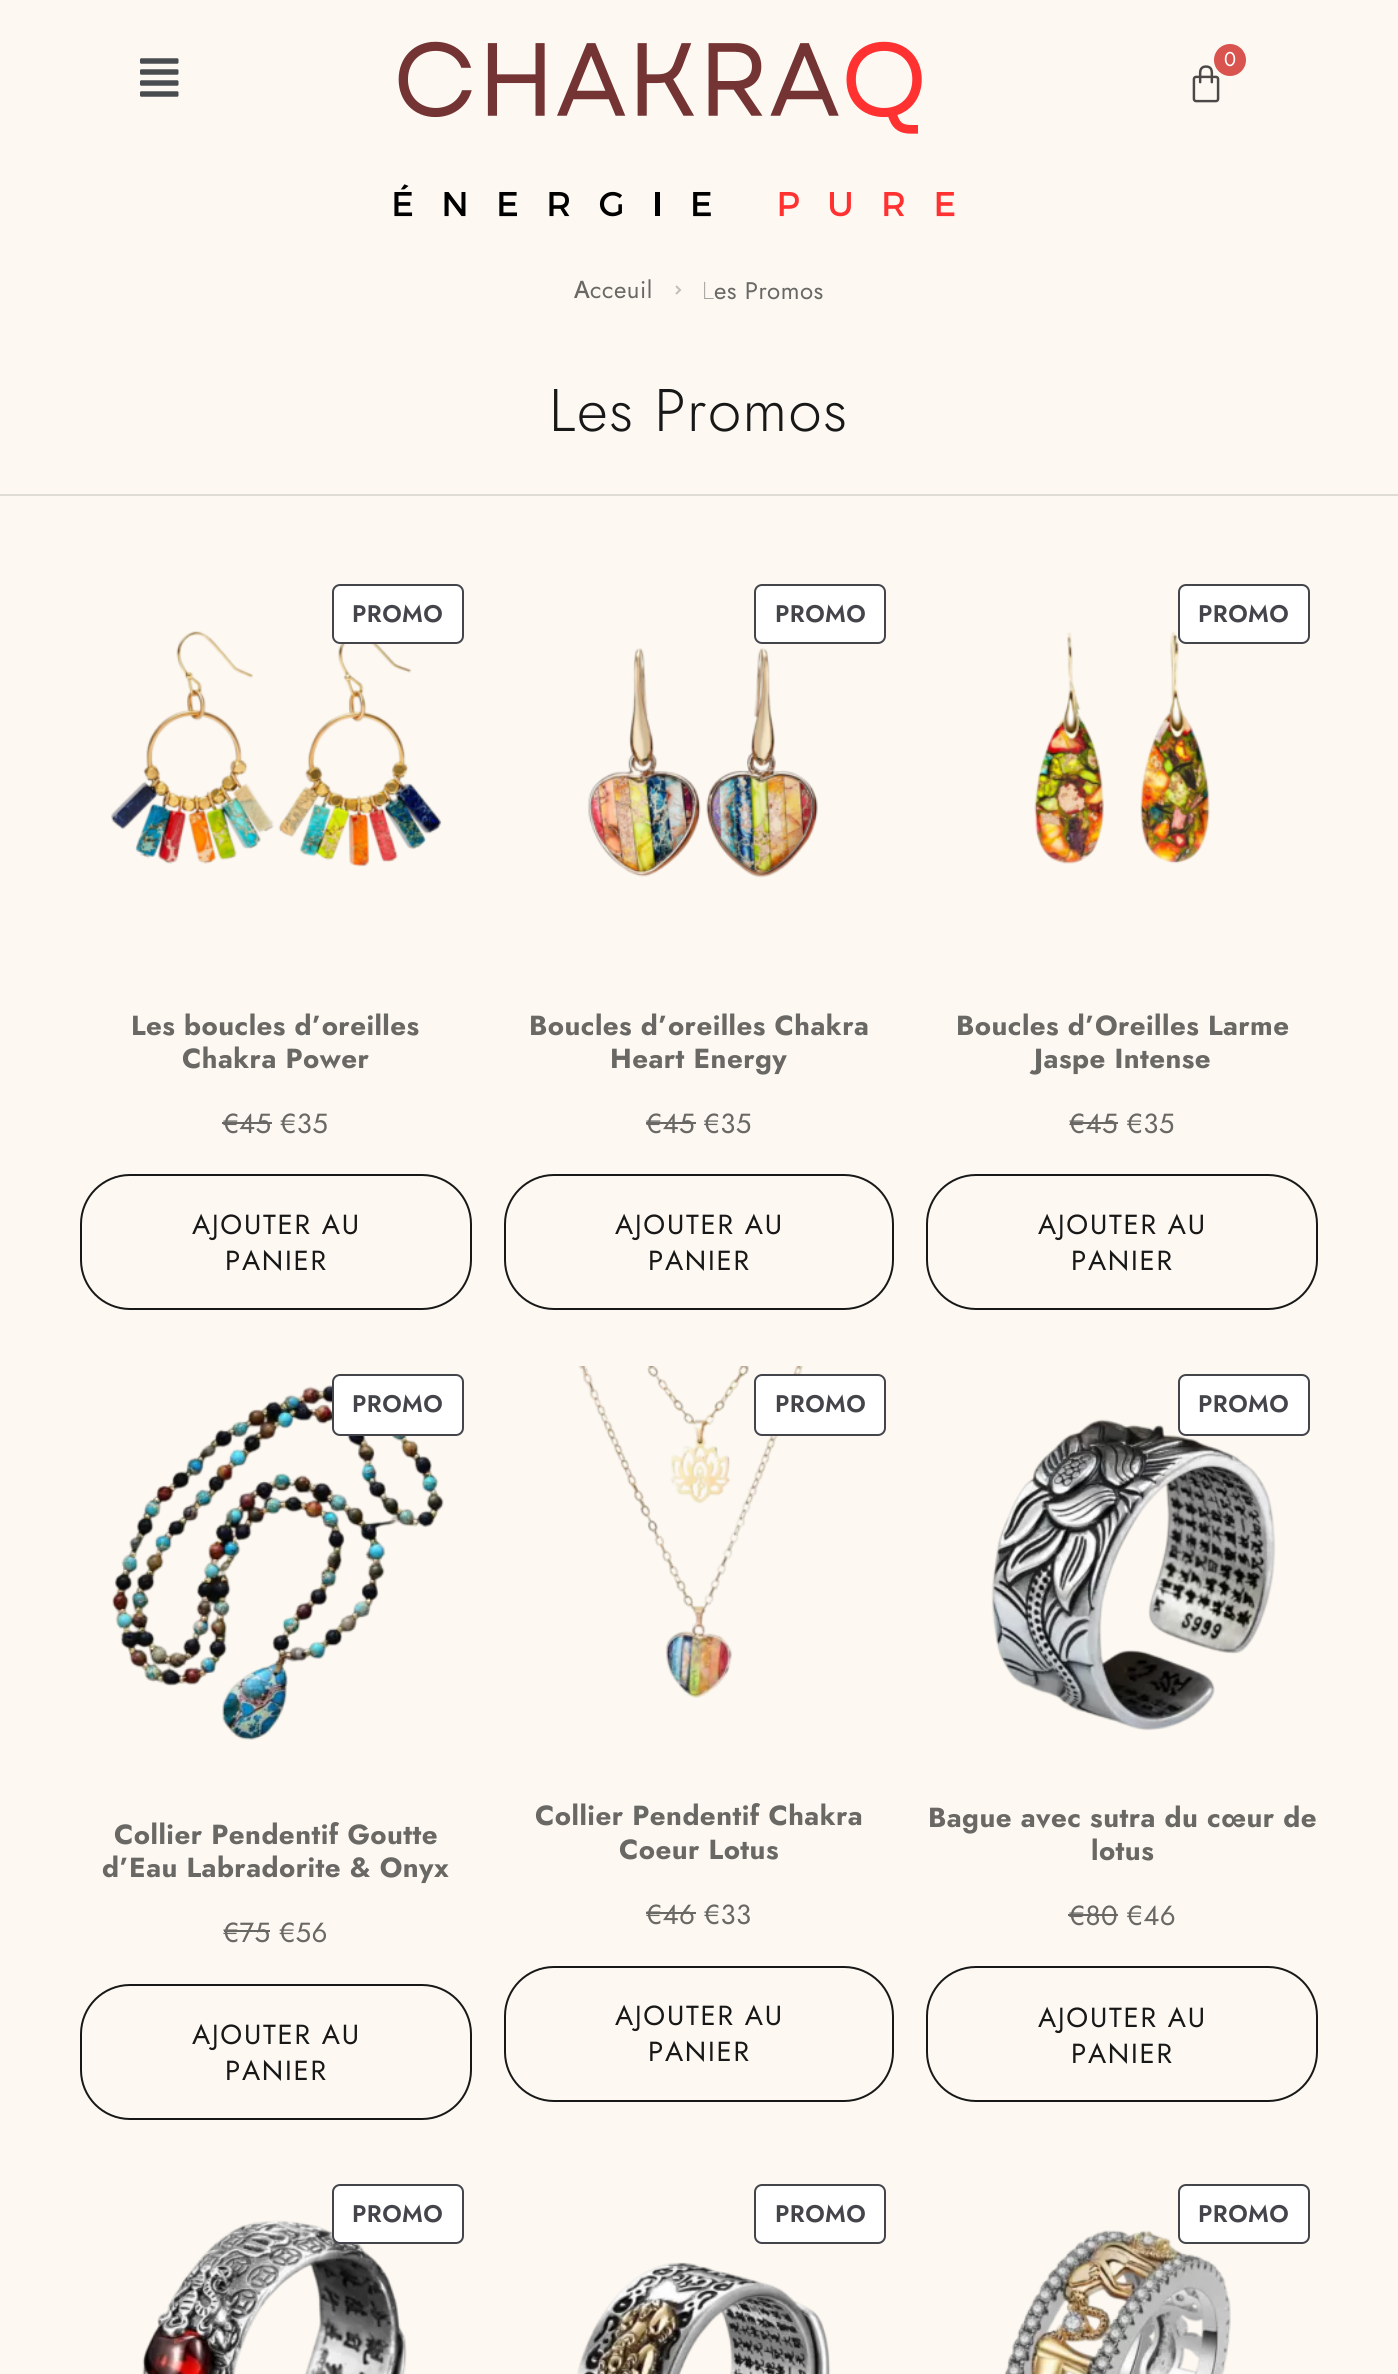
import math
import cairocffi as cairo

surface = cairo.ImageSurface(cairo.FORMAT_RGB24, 1398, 2374)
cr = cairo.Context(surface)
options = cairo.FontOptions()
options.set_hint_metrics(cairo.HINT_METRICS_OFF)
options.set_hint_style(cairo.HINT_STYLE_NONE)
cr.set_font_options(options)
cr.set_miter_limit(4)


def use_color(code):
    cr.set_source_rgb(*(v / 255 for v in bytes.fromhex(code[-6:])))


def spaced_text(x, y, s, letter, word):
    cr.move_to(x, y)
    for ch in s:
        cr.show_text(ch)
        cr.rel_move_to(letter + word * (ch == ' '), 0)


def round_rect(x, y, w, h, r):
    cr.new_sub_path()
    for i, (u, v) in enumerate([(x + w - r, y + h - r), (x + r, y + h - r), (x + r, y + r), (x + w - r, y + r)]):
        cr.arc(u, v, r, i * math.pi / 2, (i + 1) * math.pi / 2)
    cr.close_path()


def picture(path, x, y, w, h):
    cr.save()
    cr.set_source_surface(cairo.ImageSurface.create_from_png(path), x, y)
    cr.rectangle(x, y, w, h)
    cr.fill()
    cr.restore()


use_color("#fdf9f2")
cr.paint()
picture("img1.png", 140, 58, 39, 39)
picture("img2.png", 394, 41, 561, 176)
picture("img3.png", 1192, 65, 28, 38)
use_color("#d9534f")
cr.arc(1230, 60, 16, 0, 2 * math.pi)
cr.fill()
cr.select_font_face("Jost")
cr.set_font_size(20)
use_color("#ffffff")
cr.move_to(1224, 66)
cr.show_text("0")
use_color("#dfdcd6")
cr.rectangle(0, 494, 1398, 2)
cr.fill()
cr.select_font_face("Noto Sans Medium")
cr.set_font_size(24)
use_color("#696865")
spaced_text(574, 298, "A", 0.5, 0)
cr.select_font_face("Jost")
spaced_text(590, 298, "cceuil", 0.5, 0)
picture("img4.png", 675, 285, 7, 10)
cr.select_font_face("Noto Sans Thin")
spaced_text(702, 299, "L", 0.5, 0)
cr.select_font_face("Jost")
spaced_text(714, 299, "es Promos", 0.5, 0)
cr.select_font_face("Jost Light")
cr.set_font_size(60)
use_color("#181818")
spaced_text(549, 431, "Les Promos", 1.5, 0)
picture("img5.png", 110, 631, 332, 236)
use_color("#ffffff")
round_rect(333, 585, 130, 58, 7)
cr.fill_preserve()
use_color("#43454b")
cr.stroke()
cr.select_font_face("Jost SemiBold")
cr.set_font_size(24)
spaced_text(352, 622, "PROMO", 0.45, 0)
cr.select_font_face("Jost", cairo.FONT_SLANT_NORMAL, cairo.FONT_WEIGHT_BOLD)
cr.set_font_size(27.6)
use_color("#696865")
spaced_text(131, 1035, "Les boucles d’oreilles", 0.45, 0)
spaced_text(182, 1068, "Chakra Power", 0.45, 0)
cr.select_font_face("Jost")
spaced_text(223, 1133, "€", 0.45, 0)
cr.rectangle(222, 1122, 18, 2)
cr.fill()
spaced_text(239, 1133, "45 €35", 0.45, 0)
cr.rectangle(240, 1122, 32, 2)
cr.fill()
round_rect(81, 1175, 390, 134, 49)
use_color("#181818")
cr.stroke()
spaced_text(192, 1234, "AJOUTER AU", 1.75, 0)
spaced_text(225, 1270, "PANIER", 1.75, 0)
use_color("#ffffff")
round_rect(755, 585, 130, 58, 7)
cr.fill_preserve()
use_color("#43454b")
cr.stroke()
cr.select_font_face("Jost SemiBold")
cr.set_font_size(24)
spaced_text(775, 622, "PROMO", 0.45, 0)
picture("img6.png", 587, 647, 231, 231)
cr.select_font_face("Jost", cairo.FONT_SLANT_NORMAL, cairo.FONT_WEIGHT_BOLD)
cr.set_font_size(27.6)
use_color("#696865")
spaced_text(529, 1035, "Boucles d’oreilles Chakra", 0.45, 0)
spaced_text(610, 1068, "Heart Energy", 0.45, 0)
cr.select_font_face("Jost")
spaced_text(646, 1133, "€45 €35", 0.45, 0)
cr.rectangle(646, 1122, 50, 2)
cr.fill()
round_rect(505, 1175, 388, 134, 49)
use_color("#181818")
cr.stroke()
spaced_text(615, 1234, "AJOUTER AU", 1.75, 0)
spaced_text(648, 1270, "PANIER", 1.75, 0)
picture("img7.png", 1034, 631, 176, 233)
use_color("#ffffff")
round_rect(1179, 585, 130, 58, 7)
cr.fill_preserve()
use_color("#43454b")
cr.stroke()
cr.select_font_face("Jost SemiBold")
cr.set_font_size(24)
spaced_text(1198, 622, "PROMO", 0.45, 0)
cr.select_font_face("Jost", cairo.FONT_SLANT_NORMAL, cairo.FONT_WEIGHT_BOLD)
cr.set_font_size(27.6)
use_color("#696865")
spaced_text(956, 1035, "Boucles d’Oreilles Larme", 0.45, 0)
spaced_text(1034, 1068, "Jaspe Intense", 0.45, 0)
cr.select_font_face("Jost")
spaced_text(1069, 1133, "€45 €35", 0.45, 0)
cr.rectangle(1070, 1122, 48, 2)
cr.fill()
round_rect(927, 1175, 390, 134, 49)
use_color("#181818")
cr.stroke()
spaced_text(1038, 1234, "AJOUTER AU", 1.75, 0)
spaced_text(1071, 1270, "PANIER", 1.75, 0)
picture("img8.png", 112, 1385, 332, 355)
use_color("#ffffff")
round_rect(333, 1375, 130, 60, 7)
cr.fill_preserve()
use_color("#43454b")
cr.stroke()
cr.select_font_face("Jost SemiBold")
cr.set_font_size(24)
spaced_text(352, 1412, "PROMO", 0.45, 0)
cr.select_font_face("Jost", cairo.FONT_SLANT_NORMAL, cairo.FONT_WEIGHT_BOLD)
cr.set_font_size(27.6)
use_color("#696865")
spaced_text(114, 1844, "Collier Pendentif Goutte", 0.45, 0)
spaced_text(102, 1877, "d’Eau Labradorite & Onyx", 0.45, 0)
cr.select_font_face("Jost")
spaced_text(223, 1942, "€75 €56", 0.45, 0)
cr.rectangle(224, 1930, 46, 2)
cr.fill()
round_rect(81, 1985, 390, 134, 49)
use_color("#181818")
cr.stroke()
spaced_text(192, 2044, "AJOUTER AU", 1.75, 0)
spaced_text(225, 2080, "PANIER", 1.75, 0)
picture("img9.png", 578, 1366, 226, 332)
use_color("#ffffff")
round_rect(755, 1375, 130, 60, 7)
cr.fill_preserve()
use_color("#43454b")
cr.stroke()
cr.select_font_face("Jost SemiBold")
cr.set_font_size(24)
spaced_text(775, 1412, "PROMO", 0.45, 0)
cr.select_font_face("Jost", cairo.FONT_SLANT_NORMAL, cairo.FONT_WEIGHT_BOLD)
cr.set_font_size(27.6)
use_color("#696865")
spaced_text(535, 1825, "Collier Pendentif Chakra", 0.45, 0)
spaced_text(619, 1859, "Coeur Lotus", 0.45, 0)
cr.select_font_face("Jost")
spaced_text(646, 1924, "€46 €33", 0.45, 0)
cr.rectangle(646, 1912, 50, 2)
cr.fill()
round_rect(505, 1967, 388, 134, 49)
use_color("#181818")
cr.stroke()
spaced_text(615, 2025, "AJOUTER AU", 1.75, 0)
spaced_text(648, 2061, "PANIER", 1.75, 0)
picture("img10.png", 991, 1419, 285, 312)
use_color("#ffffff")
round_rect(1179, 1375, 130, 60, 7)
cr.fill_preserve()
use_color("#43454b")
cr.stroke()
cr.select_font_face("Jost SemiBold")
cr.set_font_size(24)
spaced_text(1198, 1412, "PROMO", 0.45, 0)
cr.select_font_face("Jost", cairo.FONT_SLANT_NORMAL, cairo.FONT_WEIGHT_BOLD)
cr.set_font_size(27.6)
use_color("#696865")
spaced_text(928, 1827, "Bague avec sutra du cœur de", 0.45, 0)
spaced_text(1091, 1860, "lotus", 0.45, 0)
cr.select_font_face("Jost")
spaced_text(1069, 1925, "€80 €46", 0.45, 0)
cr.rectangle(1068, 1914, 50, 2)
cr.fill()
round_rect(927, 1967, 390, 134, 49)
use_color("#181818")
cr.stroke()
spaced_text(1038, 2027, "AJOUTER AU", 1.75, 0)
spaced_text(1071, 2063, "PANIER", 1.75, 0)
picture("img11.png", 142, 2220, 265, 154)
use_color("#ffffff")
round_rect(333, 2185, 130, 58, 7)
cr.fill_preserve()
use_color("#43454b")
cr.stroke()
cr.select_font_face("Jost SemiBold")
cr.set_font_size(24)
spaced_text(352, 2222, "PROMO", 0.45, 0)
use_color("#ffffff")
round_rect(755, 2185, 130, 58, 7)
cr.fill_preserve()
use_color("#43454b")
cr.stroke()
spaced_text(775, 2222, "PROMO", 0.45, 0)
picture("img12.png", 577, 2262, 254, 112)
picture("img13.png", 1004, 2230, 227, 144)
use_color("#ffffff")
round_rect(1179, 2185, 130, 58, 7)
cr.fill_preserve()
use_color("#43454b")
cr.stroke()
spaced_text(1198, 2222, "PROMO", 0.45, 0)
surface.write_to_png("result.png")
